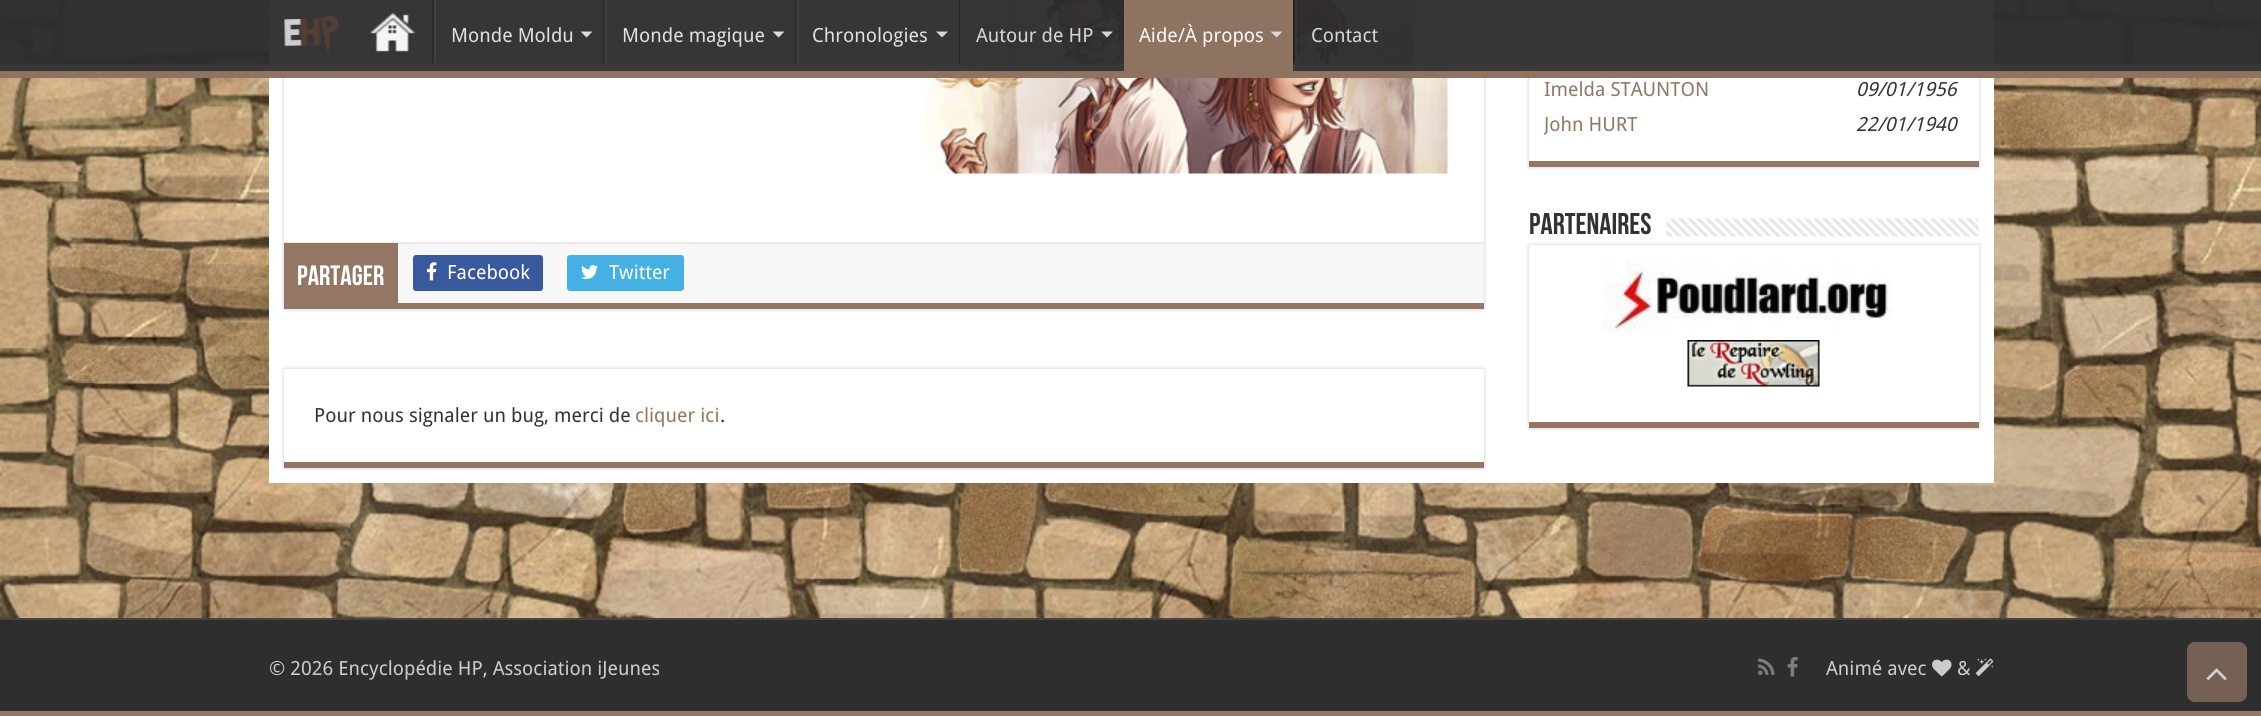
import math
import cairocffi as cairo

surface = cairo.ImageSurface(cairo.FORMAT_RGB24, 2261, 716)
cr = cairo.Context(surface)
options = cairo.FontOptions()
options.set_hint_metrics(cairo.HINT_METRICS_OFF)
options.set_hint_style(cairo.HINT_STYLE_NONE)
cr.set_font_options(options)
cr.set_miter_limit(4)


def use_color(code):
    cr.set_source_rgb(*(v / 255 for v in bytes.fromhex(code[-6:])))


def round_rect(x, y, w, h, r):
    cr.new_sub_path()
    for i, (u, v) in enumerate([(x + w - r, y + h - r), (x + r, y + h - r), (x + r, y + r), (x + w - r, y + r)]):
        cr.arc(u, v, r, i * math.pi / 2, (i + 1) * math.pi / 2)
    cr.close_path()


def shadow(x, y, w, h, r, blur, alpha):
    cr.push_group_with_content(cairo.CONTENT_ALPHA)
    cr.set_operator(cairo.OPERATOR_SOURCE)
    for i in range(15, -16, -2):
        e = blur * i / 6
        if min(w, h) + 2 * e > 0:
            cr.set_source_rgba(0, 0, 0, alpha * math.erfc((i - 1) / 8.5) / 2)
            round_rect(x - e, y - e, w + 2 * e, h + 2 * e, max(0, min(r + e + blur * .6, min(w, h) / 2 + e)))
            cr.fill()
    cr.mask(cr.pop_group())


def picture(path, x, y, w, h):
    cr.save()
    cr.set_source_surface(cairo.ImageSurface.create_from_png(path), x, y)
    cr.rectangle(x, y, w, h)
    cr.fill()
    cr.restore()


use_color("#ffffff")
cr.paint()
picture("img1.png", 0, 0, 2261, 618)
use_color("#ffffff")
cr.rectangle(269, 0, 1725, 483)
cr.fill()
picture("img4.png", 1686, 1, 293, 18)
use_color("#cacaca")
shadow(1529, 27, 450, 140, 0, 2, 1)
use_color("#ffffff")
cr.rectangle(1529, 27, 450, 134)
cr.fill()
use_color("#cacaca")
shadow(284, -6, 1200, 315, 0, 2, 1)
use_color("#ffffff")
cr.rectangle(284, 0, 1200, 242)
cr.fill()
picture("img8.png", 920, 0, 528, 174)
cr.set_source_rgba(0.176, 0.176, 0.176, 0.95)
cr.rectangle(0, 0, 2261, 78)
cr.fill()
cr.save()
cr.rectangle(0, 0, 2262, 71)
cr.clip()
cr.set_source_rgba(0.224, 0.224, 0.224, 0.95)
cr.set_fill_rule(cairo.FILL_RULE_EVEN_ODD)
cr.new_path()
cr.move_to(-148, -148)
cr.line_to(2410, -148)
cr.line_to(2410, 219)
cr.line_to(-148, 219)
cr.close_path()
cr.move_to(-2, -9)
cr.line_to(2260, -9)
cr.curve_to(2261, -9, 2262, -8, 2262, -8)
cr.line_to(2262, 63)
cr.curve_to(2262, 64, 2261, 64, 2260, 64)
cr.line_to(-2, 64)
cr.curve_to(-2, 64, -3, 64, -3, 63)
cr.line_to(-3, -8)
cr.curve_to(-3, -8, -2, -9, -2, -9)
cr.close_path()
cr.fill()
cr.restore()
cr.set_source_rgba(0.576, 0.467, 0.392, 0.95)
cr.rectangle(0, 71, 2261, 7)
cr.fill()
picture("img2.png", 284, 16, 55, 38)
picture("img3.png", 370, 13, 46, 39)
use_color("#2d2d2d")
cr.rectangle(432, 0, 2, 63)
cr.fill()
use_color("#424242")
cr.rectangle(434, 0, 2, 63)
cr.fill()
cr.select_font_face("Droid Sans")
cr.set_font_size(19.5)
use_color("#dfdfdf")
cr.move_to(451, 42)
cr.show_text("Monde Moldu")
cr.new_path()
cr.move_to(580.5, 31.5)
cr.line_to(592.5, 31.5)
cr.line_to(586.5, 37.5)
cr.close_path()
cr.fill()
use_color("#2d2d2d")
cr.rectangle(603, 0, 2, 63)
cr.fill()
use_color("#424242")
cr.rectangle(605, 0, 2, 63)
cr.fill()
use_color("#dfdfdf")
cr.move_to(622, 42)
cr.show_text("Monde magique")
cr.new_path()
cr.move_to(772.5, 31.5)
cr.line_to(784.5, 31.5)
cr.line_to(778.5, 37.5)
cr.close_path()
cr.fill()
use_color("#2d2d2d")
cr.rectangle(795, 0, 2, 63)
cr.fill()
use_color("#424242")
cr.rectangle(797, 0, 2, 63)
cr.fill()
use_color("#dfdfdf")
cr.move_to(812, 42)
cr.show_text("Chronologies")
use_color("#d5d5d5")
cr.new_path()
cr.move_to(936, 31.5)
cr.line_to(948, 31.5)
cr.line_to(942, 37.5)
cr.close_path()
cr.fill()
use_color("#232323")
cr.rectangle(959, 0, 2, 63)
cr.fill()
cr.set_source_rgba(0.22, 0.22, 0.22, 0.95)
cr.rectangle(960, 0, 1, 63)
cr.fill()
use_color("#d5d5d5")
cr.move_to(976, 42)
cr.show_text("Autour de HP")
cr.set_source_rgba(0.867, 0.867, 0.867, 0.95)
cr.new_path()
cr.move_to(1101, 31.5)
cr.line_to(1113, 31.5)
cr.line_to(1107, 37.5)
cr.close_path()
cr.fill()
cr.set_source_rgba(0.576, 0.467, 0.392, 0.95)
cr.rectangle(1124, 0, 169, 71)
cr.fill()
use_color("#f9f8f7")
cr.move_to(1139, 42)
cr.show_text("Aide/À propos")
use_color("#d9d8d7")
cr.new_path()
cr.move_to(1270.5, 31.5)
cr.line_to(1282.5, 31.5)
cr.line_to(1276.5, 37.5)
cr.close_path()
cr.fill()
cr.set_source_rgba(0.133, 0.133, 0.133, 0.95)
cr.rectangle(1293, 0, 2, 63)
cr.fill()
cr.set_source_rgba(0.22, 0.22, 0.22, 0.95)
cr.rectangle(1295, 0, 2, 63)
cr.fill()
use_color("#d5d5d5")
cr.move_to(1311, 42)
cr.show_text("Contact")
use_color("#937764")
cr.rectangle(1529, 161, 450, 6)
cr.fill()
cr.move_to(1544, 96)
cr.show_text("Imelda STAUNTON")
cr.select_font_face("Droid Sans", cairo.FONT_SLANT_ITALIC)
use_color("#333333")
cr.move_to(1856, 96)
cr.show_text("09/01/1956")
cr.save()
cr.rectangle(1544, 111, 420, 35)
cr.clip()
cr.select_font_face("Droid Sans")
use_color("#937764")
cr.move_to(1544, 131)
cr.show_text("John HURT")
cr.restore()
cr.move_to(1856, 131)
cr.show_text("22/01/1940")
cr.select_font_face("Bebas Neue", cairo.FONT_SLANT_NORMAL, cairo.FONT_WEIGHT_BOLD)
cr.set_font_size(30)
cr.move_to(1529, 234)
cr.show_text("Partenaires")
picture("img5.png", 1666, 218, 313, 19)
use_color("#cacaca")
shadow(1529, 245, 450, 183, 0, 2, 1)
use_color("#ffffff")
cr.rectangle(1529, 245, 450, 177)
cr.fill()
use_color("#937764")
cr.rectangle(1529, 422, 450, 6)
cr.fill()
picture("img6.png", 1603, 259, 289, 73)
picture("img7.png", 1687, 340, 133, 47)
cr.rectangle(284, 303, 1200, 6)
cr.fill()
use_color("#f7f7f7")
cr.rectangle(398, 244, 1086, 59)
cr.fill()
use_color("#eaeaea")
cr.rectangle(284, 242, 1200, 2)
cr.fill()
use_color("#937764")
cr.rectangle(284, 243, 114, 60)
cr.fill()
cr.set_font_size(28)
use_color("#ffffff")
cr.move_to(297, 285)
cr.show_text("Partager")
use_color("#39599f")
round_rect(413, 255, 130, 36, 3)
cr.fill()
picture("img9.png", 427, 262, 10, 19)
cr.select_font_face("Droid Sans")
cr.set_font_size(19.5)
use_color("#ffffff")
cr.move_to(447, 279)
cr.show_text("Facebook")
use_color("#45b0e3")
round_rect(567, 255, 117, 36, 3)
cr.fill()
picture("img10.png", 581, 265, 17, 14)
use_color("#ffffff")
cr.move_to(609, 279)
cr.show_text("Twitter")
use_color("#cacaca")
shadow(284, 369, 1200, 99, 0, 2, 1)
use_color("#ffffff")
cr.rectangle(284, 369, 1200, 93)
cr.fill()
use_color("#937764")
cr.rectangle(284, 462, 1200, 6)
cr.fill()
use_color("#333333")
cr.move_to(314, 422)
cr.show_text("Pour nous signaler un bug, merci de")
use_color("#937764")
cr.move_to(635, 422)
cr.show_text("cliquer ici")
use_color("#333333")
cr.move_to(720, 422)
cr.show_text(".")
use_color("#2e2e2e")
cr.rectangle(0, 620, 2261, 91)
cr.fill()
use_color("#444444")
cr.rectangle(0, 618, 2261, 2)
cr.fill()
use_color("#cccccc")
cr.move_to(269, 675)
cr.show_text("© 2026 Encyclopédie HP, Association iJeunes")
picture("img11.png", 1758, 658, 17, 17)
picture("img12.png", 1787, 657, 11, 20)
cr.move_to(1826, 675)
cr.show_text("Animé avec")
picture("img13.png", 1932, 659, 20, 18)
cr.move_to(1957, 675)
cr.show_text("&")
picture("img14.png", 1975, 658, 19, 18)
use_color("#756154")
round_rect(2187, 642, 60, 60, 8)
cr.fill()
picture("img15.png", 2206, 668, 21, 12)
use_color("#937764")
cr.rectangle(0, 711, 2261, 5)
cr.fill()
surface.write_to_png("result.png")
